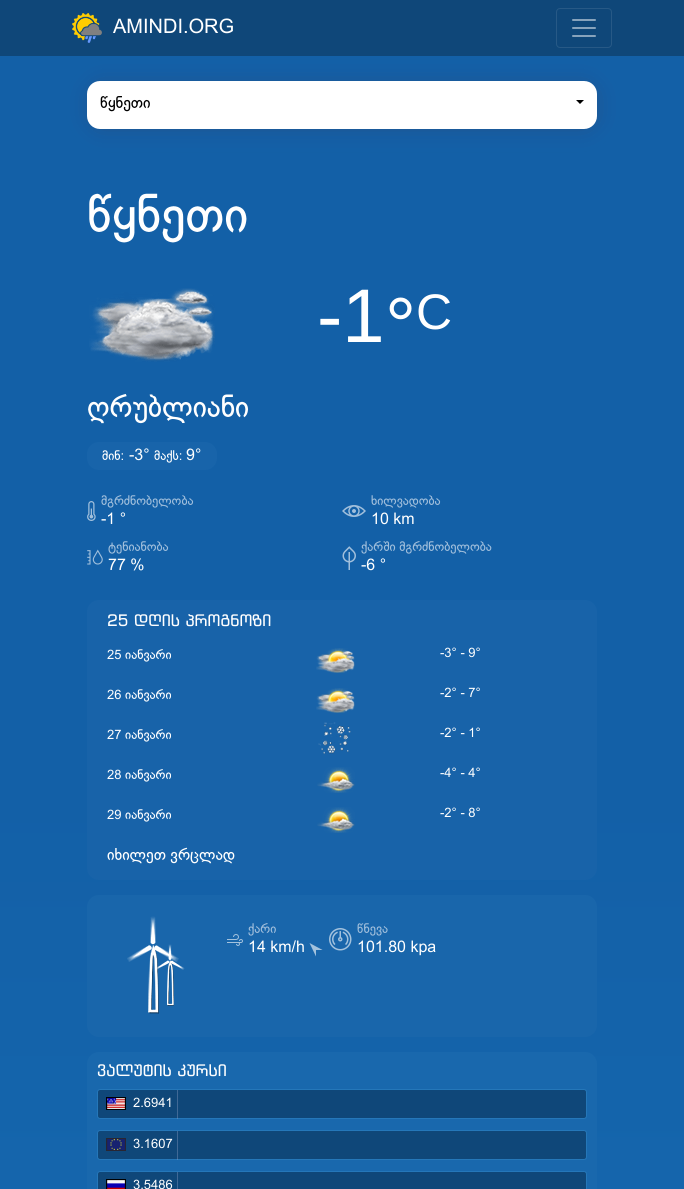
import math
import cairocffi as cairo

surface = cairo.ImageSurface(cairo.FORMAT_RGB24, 684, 1189)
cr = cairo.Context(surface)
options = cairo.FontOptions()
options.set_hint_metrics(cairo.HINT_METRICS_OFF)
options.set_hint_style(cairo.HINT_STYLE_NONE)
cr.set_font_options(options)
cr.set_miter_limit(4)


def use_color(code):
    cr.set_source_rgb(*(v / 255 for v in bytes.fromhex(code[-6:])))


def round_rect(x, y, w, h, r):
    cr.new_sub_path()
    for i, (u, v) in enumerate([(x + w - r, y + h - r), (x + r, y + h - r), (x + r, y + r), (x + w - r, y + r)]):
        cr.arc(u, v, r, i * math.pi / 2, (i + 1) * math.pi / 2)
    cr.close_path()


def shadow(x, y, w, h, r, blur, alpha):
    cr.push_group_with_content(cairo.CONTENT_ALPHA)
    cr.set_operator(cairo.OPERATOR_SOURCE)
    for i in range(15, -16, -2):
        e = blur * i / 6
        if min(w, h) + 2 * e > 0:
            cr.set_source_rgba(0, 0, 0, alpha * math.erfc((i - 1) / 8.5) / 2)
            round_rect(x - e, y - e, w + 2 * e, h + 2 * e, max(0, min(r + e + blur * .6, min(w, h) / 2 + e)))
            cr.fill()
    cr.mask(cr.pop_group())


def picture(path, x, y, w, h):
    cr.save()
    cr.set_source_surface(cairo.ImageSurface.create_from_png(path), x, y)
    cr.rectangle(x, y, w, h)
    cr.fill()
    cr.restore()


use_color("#ffffff")
cr.paint()
use_color("#0f4779")
cr.rectangle(0, 0, 684, 56)
cr.fill()
picture("img1.png", 72, 13, 30, 30)
cr.select_font_face("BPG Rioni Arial")
cr.set_font_size(20)
use_color("#ffffff")
cr.move_to(113, 33)
cr.show_text("AMINDI.ORG")
round_rect(556.5, 8.5, 55, 39, 3.5)
use_color("#275986")
cr.set_line_width(1)
cr.stroke()
picture("img2.png", 572, 19, 24, 18)
gradient = cairo.LinearGradient(342, 56, 342, 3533)
gradient.add_color_stop_rgba(0.21, 0.075, 0.376, 0.655, 1)
gradient.add_color_stop_rgba(0.79, 0.106, 0.482, 0.757, 1)
gradient.add_color_stop_rgba(1, 0.031, 0.376, 0.627, 1)
cr.set_source(gradient)
cr.rectangle(0, 56, 684, 1133)
cr.fill()
use_color("#2e4777")
shadow(97, 91, 492, 30, 4, 12.5, 1)
use_color("#ffffff")
round_rect(87, 81, 510, 48, 13)
cr.fill()
cr.set_font_size(16)
use_color("#000000")
cr.move_to(100, 108)
cr.show_text("წყნეთი")
cr.new_path()
cr.move_to(576, 100)
cr.line_to(584, 100)
cr.line_to(580, 104)
cr.close_path()
cr.fill()
cr.set_font_size(51)
use_color("#ffffff")
cr.move_to(87, 232)
cr.show_text("წყნეთი")
picture("img3.png", 89, 288, 126, 74)
cr.select_font_face("Liberation Sans")
cr.set_font_size(76)
cr.move_to(317, 342)
cr.show_text("-1")
cr.set_font_size(78)
cr.move_to(385, 352)
cr.show_text("°")
cr.set_font_size(50)
cr.move_to(416, 329)
cr.show_text("C")
cr.select_font_face("BPG Rioni Arial")
cr.set_font_size(30)
cr.move_to(87, 417)
cr.show_text("ღრუბლიანი")
use_color("#1864aa")
round_rect(87, 442, 130, 28, 12)
cr.fill()
cr.set_font_size(13)
use_color("#ffffff")
cr.move_to(102, 460)
cr.show_text("მინ:")
cr.set_font_size(16)
cr.move_to(129, 460)
cr.show_text("-3°")
cr.set_font_size(13)
cr.move_to(154, 460)
cr.show_text("მაქს:")
cr.set_font_size(16)
cr.move_to(186, 460)
cr.show_text("9°")
picture("img4.png", 87, 501, 9, 20)
cr.set_font_size(13)
use_color("#a1bfdc")
cr.move_to(101, 505)
cr.show_text("მგრძნობელობა")
cr.set_font_size(16)
use_color("#ffffff")
cr.move_to(101, 524)
cr.show_text("-1 °")
picture("img5.png", 342, 505, 24, 12)
cr.set_font_size(13)
use_color("#a1bfdc")
cr.move_to(371, 505)
cr.show_text("ხილვადობა")
cr.set_font_size(16)
use_color("#ffffff")
cr.move_to(371, 524)
cr.show_text("10 km")
picture("img6.png", 87, 549, 16, 16)
cr.set_font_size(13)
use_color("#a1bfdc")
cr.move_to(108, 551)
cr.show_text("ტენიანობა")
cr.set_font_size(16)
use_color("#ffffff")
cr.move_to(108, 570)
cr.show_text("77 %")
picture("img7.png", 342, 546, 14, 24)
cr.set_font_size(13)
use_color("#a1bfdc")
cr.move_to(361, 551)
cr.show_text("ქარში მგრძნობელობა")
cr.set_font_size(16)
use_color("#ffffff")
cr.move_to(361, 570)
cr.show_text("-6 °")
use_color("#1863a9")
round_rect(87, 600, 510, 280, 12)
cr.fill()
cr.select_font_face("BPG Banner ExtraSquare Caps")
use_color("#ffffff")
cr.move_to(107, 626)
cr.show_text("25 დღის პროგნოზი")
cr.select_font_face("BPG Rioni Arial")
cr.set_font_size(13)
cr.move_to(107, 659)
cr.show_text("25 იანვარი")
picture("img8.png", 316, 648, 39, 25)
cr.move_to(440, 657)
cr.show_text("-3° - 9°")
cr.move_to(107, 699)
cr.show_text("26 იანვარი")
picture("img8.png", 316, 688, 39, 25)
cr.move_to(440, 697)
cr.show_text("-2° - 7°")
cr.move_to(107, 739)
cr.show_text("27 იანვარი")
picture("img9.png", 318, 722, 33, 32)
cr.move_to(440, 737)
cr.show_text("-2° - 1°")
cr.move_to(107, 779)
cr.show_text("28 იანვარი")
picture("img10.png", 317, 767, 38, 26)
cr.move_to(440, 777)
cr.show_text("-4° - 4°")
cr.move_to(107, 819)
cr.show_text("29 იანვარი")
picture("img10.png", 317, 807, 38, 26)
cr.move_to(440, 817)
cr.show_text("-2° - 8°")
cr.set_font_size(16)
cr.move_to(107, 860)
cr.show_text("იხილეთ ვრცლად")
use_color("#1966ab")
round_rect(87, 895, 510, 142, 12)
cr.fill()
picture("img11.png", 148, 945, 26, 69)
picture("img12.png", 127, 916, 52, 46)
picture("img13.png", 157, 944, 28, 26)
picture("img14.png", 227, 934, 16, 12)
cr.set_font_size(13)
use_color("#a1bfdc")
cr.move_to(248, 933)
cr.show_text("ქარი")
cr.set_font_size(16)
use_color("#ffffff")
cr.move_to(248, 952)
cr.show_text("14 km/h")
use_color("#a3c2dd")
cr.new_path()
cr.move_to(309.5, 943)
cr.line_to(322.5, 950)
cr.line_to(316, 950)
cr.line_to(316, 956.5)
cr.close_path()
cr.fill()
picture("img15.png", 329, 928, 23, 23)
cr.set_font_size(13)
use_color("#a1bfdc")
cr.move_to(357, 933)
cr.show_text("წნევა")
cr.set_font_size(16)
use_color("#ffffff")
cr.move_to(357, 952)
cr.show_text("101.80 kpa")
use_color("#1968ad")
round_rect(87, 1052, 510, 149, 12)
cr.fill()
cr.select_font_face("BPG Banner ExtraSquare Caps")
use_color("#ffffff")
cr.move_to(97, 1076)
cr.show_text("ვალუტის კურსი")
use_color("#0f4779")
round_rect(97.5, 1089.5, 489, 29, 2.5)
cr.fill_preserve()
use_color("#2577b9")
cr.stroke()
picture("img16.png", 106, 1097, 20, 13)
cr.set_source_rgba(0.514, 0.6, 0.753, 0.42)
cr.rectangle(177, 1090, 1, 29)
cr.fill()
cr.select_font_face("BPG Rioni Arial")
cr.set_font_size(13)
use_color("#ffffff")
cr.move_to(133, 1107)
cr.show_text("2.6941")
use_color("#0f4779")
round_rect(97.5, 1130.5, 489, 29, 2.5)
cr.fill_preserve()
use_color("#2577b9")
cr.stroke()
picture("img17.png", 106, 1138, 20, 13)
cr.set_source_rgba(0.514, 0.6, 0.753, 0.42)
cr.rectangle(177, 1131, 1, 29)
cr.fill()
use_color("#ffffff")
cr.move_to(133, 1148)
cr.show_text("3.1607")
use_color("#0f4779")
round_rect(97.5, 1171.5, 489, 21, 2.5)
cr.fill_preserve()
use_color("#2577b9")
cr.stroke()
picture("img18.png", 106, 1179, 20, 10)
use_color("#406997")
cr.rectangle(177, 1172, 1, 17)
cr.fill()
use_color("#ffffff")
cr.move_to(133, 1189)
cr.show_text("3.5486")
surface.write_to_png("result.png")
